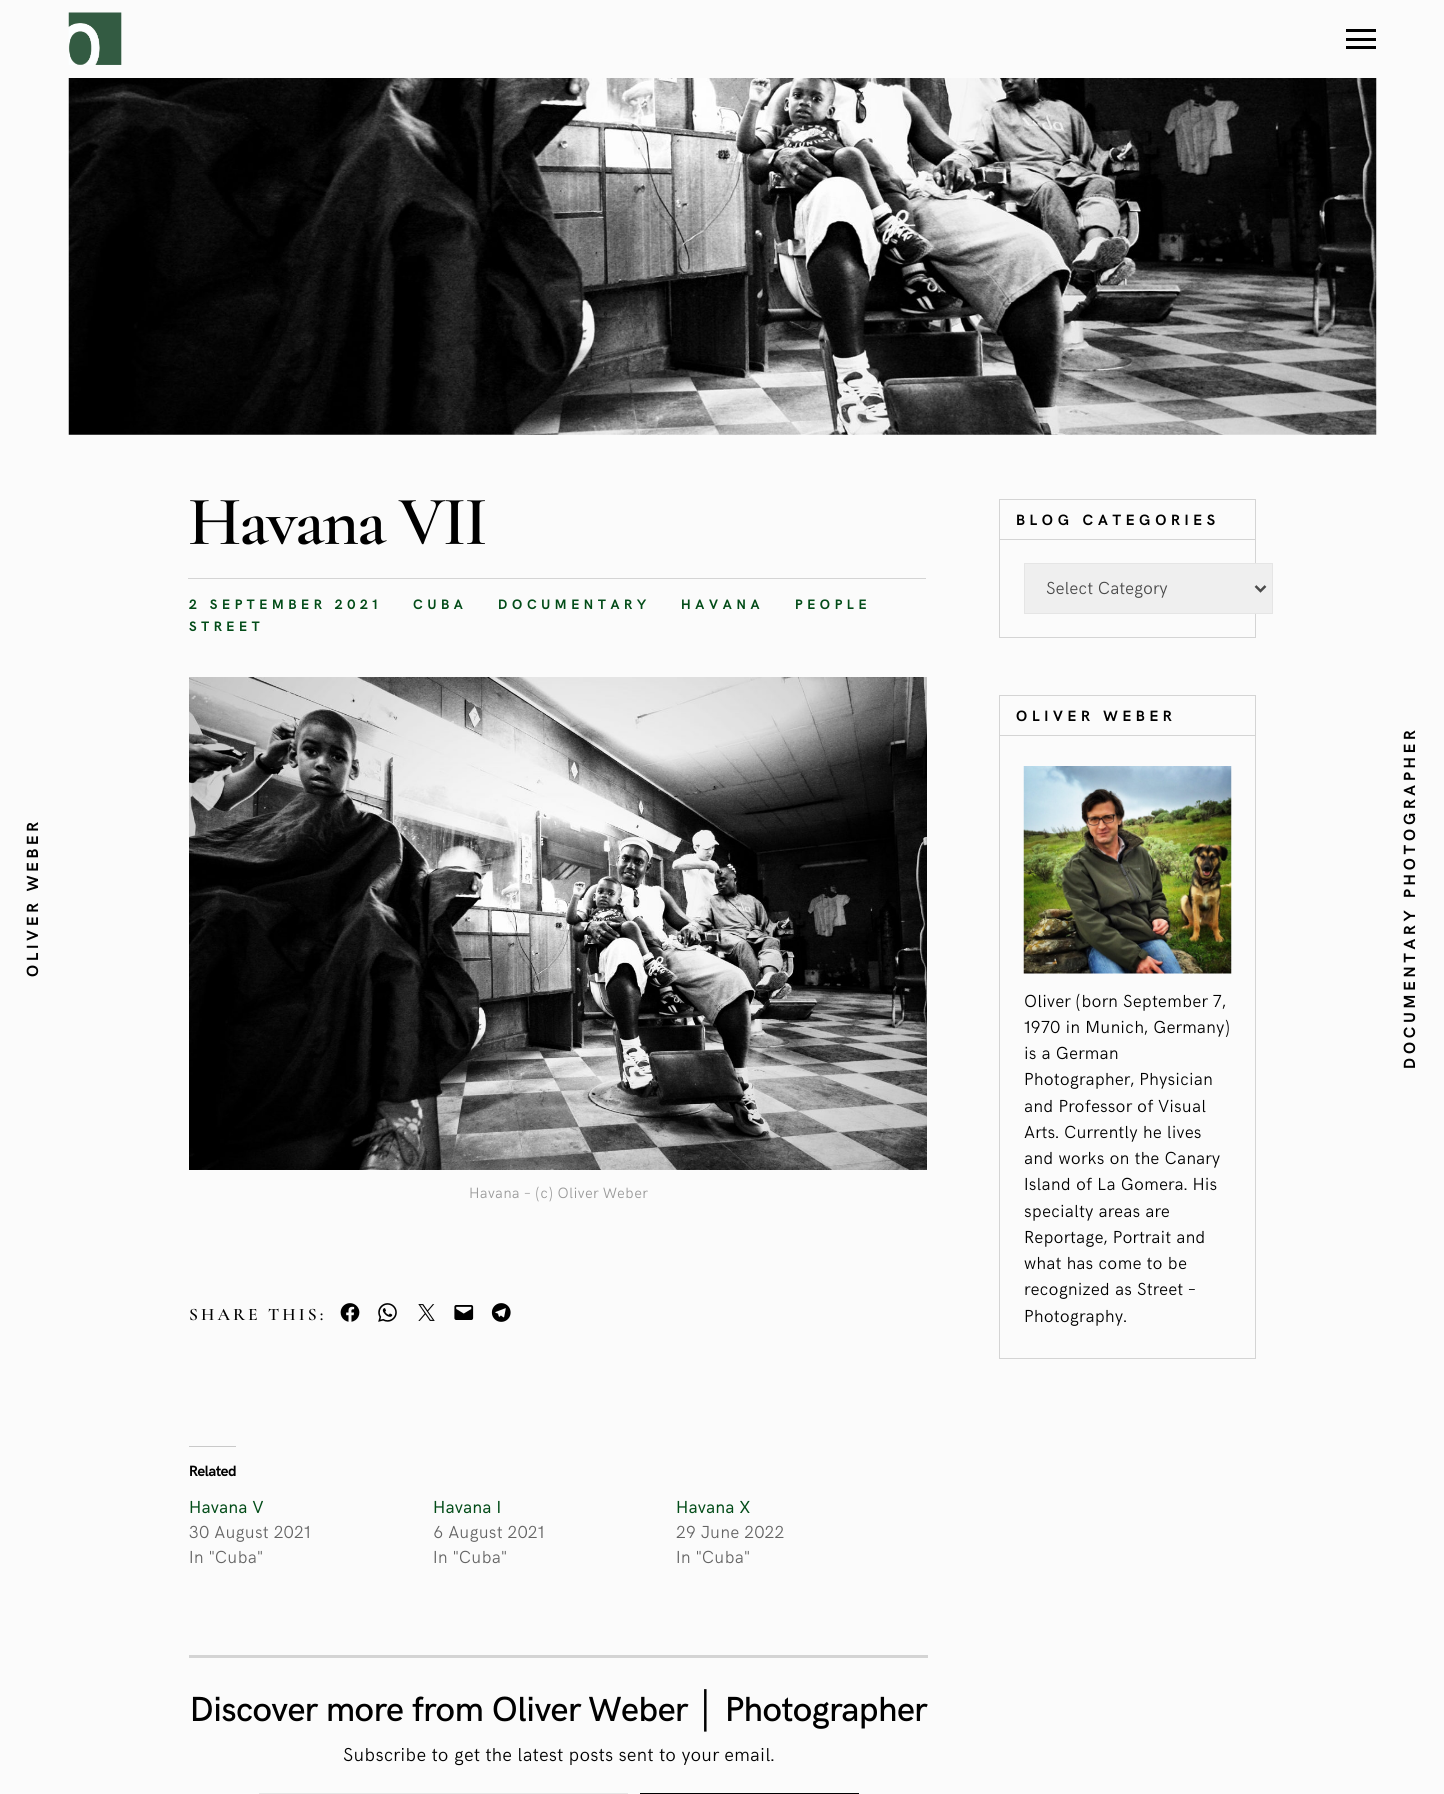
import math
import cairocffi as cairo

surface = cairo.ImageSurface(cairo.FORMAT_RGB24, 1444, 1794)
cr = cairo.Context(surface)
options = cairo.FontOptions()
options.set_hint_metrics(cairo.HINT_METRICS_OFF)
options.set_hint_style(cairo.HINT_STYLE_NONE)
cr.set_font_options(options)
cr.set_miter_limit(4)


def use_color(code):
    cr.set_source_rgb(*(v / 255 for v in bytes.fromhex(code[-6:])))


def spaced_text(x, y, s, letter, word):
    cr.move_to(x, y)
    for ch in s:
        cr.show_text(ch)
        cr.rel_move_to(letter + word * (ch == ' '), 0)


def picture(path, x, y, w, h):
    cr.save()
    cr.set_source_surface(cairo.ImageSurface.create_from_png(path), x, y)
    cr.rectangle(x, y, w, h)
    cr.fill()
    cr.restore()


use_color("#fbfbfb")
cr.paint()
picture("img1.png", 68, 12, 54, 53)
use_color("#000000")
cr.rectangle(1346, 29, 30, 3)
cr.fill()
cr.rectangle(1346, 38, 30, 3)
cr.fill()
cr.rectangle(1346, 46, 30, 3)
cr.fill()
cr.select_font_face("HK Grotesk", cairo.FONT_SLANT_NORMAL, cairo.FONT_WEIGHT_BOLD)
cr.set_font_size(16.25)
cr.save()
cr.translate(38, 977)
cr.rotate(-90 * math.pi / 180)
spaced_text(0, 0, "OLIVER WEBER", 3.9, 0)
cr.restore()
picture("img2.png", 68, 78, 1309, 357)
cr.select_font_face("Cormorant Garamond SemiBold")
cr.set_font_size(70)
spaced_text(188, 544, "Havana VII", -2.1, 0)
use_color("#d4d4d4")
cr.rectangle(188, 578, 738, 1)
cr.fill()
cr.select_font_face("HK Grotesk", cairo.FONT_SLANT_NORMAL, cairo.FONT_WEIGHT_BOLD)
cr.set_font_size(13.75)
use_color("#024c18")
spaced_text(189, 609, "2 SEPTEMBER 2021", 4.7, 0)
spaced_text(413, 609, "CUBA", 4.7, 0)
spaced_text(498, 609, "DOCUMENTARY", 4.7, 0)
spaced_text(681, 609, "HAVANA", 4.7, 0)
spaced_text(795, 609, "PEOPLE", 4.7, 0)
spaced_text(189, 631, "STREET", 4.7, 0)
picture("img3.png", 189, 677, 738, 493)
cr.select_font_face("HK Grotesk Light")
cr.set_font_size(15)
use_color("#999999")
spaced_text(469, 1198, "Havana – (c) Oliver Weber", 0.3, 0)
cr.select_font_face("Cormorant Garamond SemiBold")
cr.set_font_size(17.5)
use_color("#000000")
spaced_text(189, 1320, "SHARE THIS:", 3.1, 0)
picture("img4.png", 340, 1303, 20, 19)
picture("img5.png", 378, 1303, 19, 19)
picture("img6.png", 418, 1304, 17, 17)
picture("img7.png", 454, 1305, 20, 15)
picture("img8.png", 491, 1303, 20, 19)
use_color("#c9c9c9")
cr.rectangle(189, 1446, 47, 1)
cr.fill()
cr.select_font_face("HK Grotesk", cairo.FONT_SLANT_NORMAL, cairo.FONT_WEIGHT_BOLD)
cr.set_font_size(15)
use_color("#000000")
spaced_text(189, 1476, "Related", -0.5, 0)
cr.select_font_face("HK Grotesk")
cr.set_font_size(17.5)
use_color("#024c18")
spaced_text(189, 1513, "Havana V", 0.15, 0)
cr.select_font_face("HK Grotesk Light")
use_color("#646464")
spaced_text(189, 1538, "30 August 2021", 0.15, 0)
spaced_text(189, 1563, "In \"Cuba\"", 0.15, 0)
cr.select_font_face("HK Grotesk")
use_color("#024c18")
spaced_text(433, 1513, "Havana I", 0.15, 0)
cr.select_font_face("HK Grotesk Light")
use_color("#646464")
spaced_text(433, 1538, "6 August 2021", 0.15, 0)
spaced_text(433, 1563, "In \"Cuba\"", 0.15, 0)
cr.select_font_face("HK Grotesk")
use_color("#024c18")
spaced_text(676, 1513, "Havana X", 0.15, 0)
cr.select_font_face("HK Grotesk Light")
use_color("#646464")
spaced_text(676, 1538, "29 June 2022", 0.15, 0)
spaced_text(676, 1563, "In \"Cuba\"", 0.15, 0)
use_color("#d4d4d4")
cr.rectangle(189, 1655, 739, 3)
cr.fill()
cr.select_font_face("HK Grotesk Medium")
cr.set_font_size(35)
use_color("#000000")
spaced_text(190, 1721, "Discover more from Oliver Weber", -0.85, 0)
cr.select_font_face("Liberation Sans")
spaced_text(696, 1721, "│", -0.85, 0)
cr.select_font_face("HK Grotesk Medium")
spaced_text(725, 1721, "Photographer", -0.85, 0)
cr.select_font_face("HK Grotesk Light")
cr.set_font_size(18.75)
spaced_text(343, 1761, "Subscribe to get the latest posts sent to your email.", 0.15, 0)
cr.rectangle(259.5, 1793.5, 368, 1)
use_color("#e5e5e5")
cr.set_line_width(1)
cr.stroke()
use_color("#000000")
cr.rectangle(640, 1793, 219, 1)
cr.fill()
cr.rectangle(999.5, 499.5, 256, 138)
use_color("#d4d4d4")
cr.stroke()
cr.rectangle(1000, 539, 255, 1)
cr.fill()
cr.select_font_face("HK Grotesk", cairo.FONT_SLANT_NORMAL, cairo.FONT_WEIGHT_BOLD)
cr.set_font_size(15)
use_color("#000000")
spaced_text(1016, 525, "BLOG CATEGORIES", 4.75, 0)
use_color("#efefef")
cr.rectangle(1024.5, 563.5, 248, 50)
cr.fill_preserve()
use_color("#e5e5e5")
cr.stroke()
cr.new_path()
cr.move_to(1255.5, 586)
cr.line_to(1260.5, 591)
cr.line_to(1265.5, 586)
use_color("#4a4a4a")
cr.set_line_width(2.5)
cr.stroke()
cr.select_font_face("HK Grotesk Light")
cr.set_font_size(17.5)
cr.move_to(1046, 594)
cr.show_text("Select Category")
cr.rectangle(999.5, 695.5, 256, 663)
use_color("#d4d4d4")
cr.set_line_width(1)
cr.stroke()
cr.rectangle(1000, 735, 255, 1)
cr.fill()
cr.select_font_face("HK Grotesk", cairo.FONT_SLANT_NORMAL, cairo.FONT_WEIGHT_BOLD)
cr.set_font_size(15)
use_color("#000000")
spaced_text(1016, 721, "OLIVER WEBER", 4.75, 0)
picture("img9.png", 1023, 766, 209, 208)
cr.select_font_face("HK Grotesk Light")
cr.set_font_size(17.5)
spaced_text(1024, 1007, "Oliver (born September 7,", 0.15, 0)
spaced_text(1024, 1033, "1970 in Munich, Germany)", 0.15, 0)
spaced_text(1024, 1059, "is a German", 0.15, 0)
spaced_text(1024, 1085, "Photographer, Physician", 0.15, 0)
spaced_text(1024, 1112, "and Professor of Visual", 0.15, 0)
spaced_text(1024, 1138, "Arts. Currently he lives", 0.15, 0)
spaced_text(1024, 1164, "and works on the Canary", 0.15, 0)
spaced_text(1024, 1190, "Island of La Gomera. His", 0.15, 0)
spaced_text(1024, 1217, "specialty areas are", 0.15, 0)
spaced_text(1024, 1243, "Reportage, Portrait and", 0.15, 0)
spaced_text(1024, 1269, "what has come to be", 0.15, 0)
spaced_text(1024, 1295, "recognized as Street –", 0.15, 0)
spaced_text(1024, 1322, "Photography.", 0.15, 0)
cr.select_font_face("HK Grotesk", cairo.FONT_SLANT_NORMAL, cairo.FONT_WEIGHT_BOLD)
cr.set_font_size(16.25)
cr.save()
cr.translate(1415, 1069)
cr.rotate(-90 * math.pi / 180)
spaced_text(0, 0, "DOCUMENTARY PHOTOGRAPHER", 3.9, 0)
cr.restore()
surface.write_to_png("result.png")
